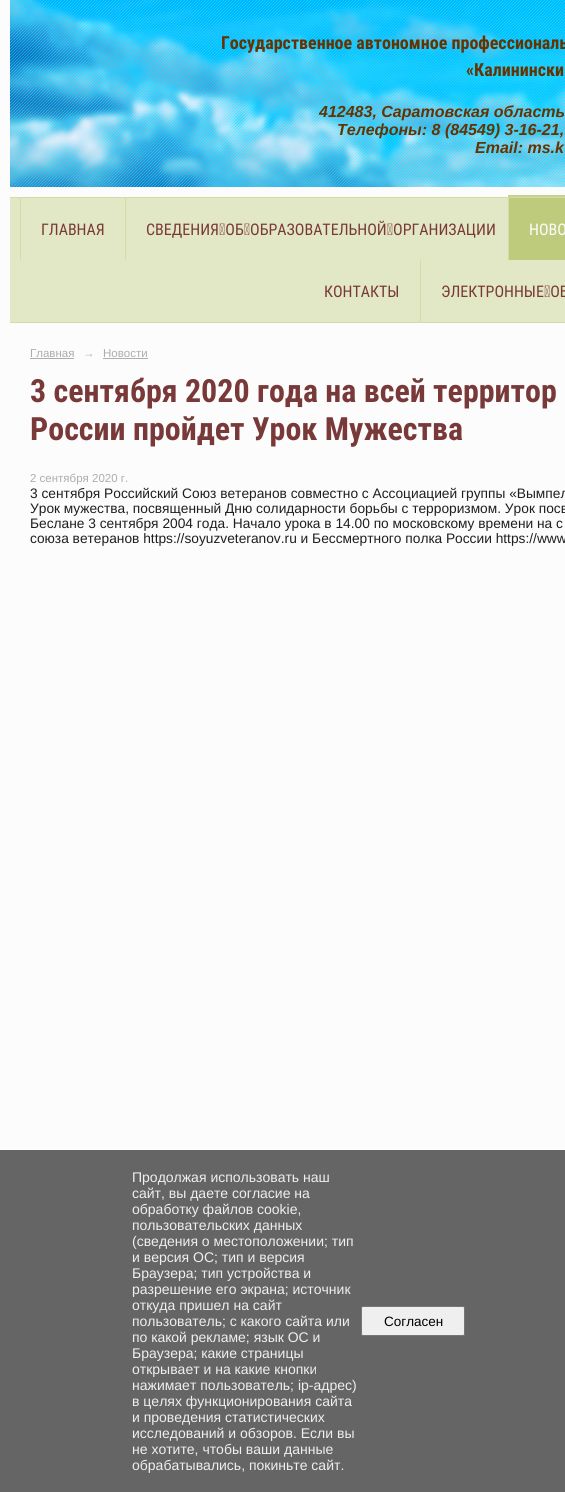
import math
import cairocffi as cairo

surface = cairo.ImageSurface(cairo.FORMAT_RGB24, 565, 1492)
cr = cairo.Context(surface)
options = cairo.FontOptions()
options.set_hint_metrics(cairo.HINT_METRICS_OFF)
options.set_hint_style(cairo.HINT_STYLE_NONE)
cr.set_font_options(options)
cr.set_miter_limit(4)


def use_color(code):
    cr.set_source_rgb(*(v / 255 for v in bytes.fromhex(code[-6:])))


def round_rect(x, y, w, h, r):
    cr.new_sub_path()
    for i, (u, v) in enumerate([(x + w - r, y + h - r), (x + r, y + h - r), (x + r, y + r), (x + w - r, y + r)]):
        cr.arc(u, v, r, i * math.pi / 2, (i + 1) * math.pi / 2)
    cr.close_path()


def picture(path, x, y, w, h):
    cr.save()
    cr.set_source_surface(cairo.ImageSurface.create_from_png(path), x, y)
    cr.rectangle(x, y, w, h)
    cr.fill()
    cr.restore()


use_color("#fcfcfc")
cr.paint()
picture("img1.png", 10, 0, 555, 187)
cr.select_font_face("Roboto Condensed", cairo.FONT_SLANT_NORMAL, cairo.FONT_WEIGHT_BOLD)
cr.set_font_size(18)
use_color("#663300")
cr.move_to(221, 49)
cr.show_text("Государственное автономное профессиональ")
cr.move_to(466, 76)
cr.show_text("«Калинински")
cr.select_font_face("Liberation Sans", cairo.FONT_SLANT_ITALIC, cairo.FONT_WEIGHT_BOLD)
cr.set_font_size(16)
cr.move_to(319, 117)
cr.show_text("412483, Саратовская область")
cr.move_to(337, 135)
cr.show_text("Телефоны: 8 (84549) 3-16-21,")
cr.move_to(475, 153)
cr.show_text("Email: ms.k")
use_color("#e2e8c5")
cr.rectangle(10, 198, 555, 124)
cr.fill()
use_color("#d3dca7")
cr.rectangle(10, 197, 555, 1)
cr.fill()
cr.rectangle(10, 322, 555, 1)
cr.fill()
cr.rectangle(125, 198, 1, 62)
cr.fill()
cr.rectangle(20, 198, 1, 62)
cr.fill()
cr.select_font_face("Roboto Condensed")
use_color("#793939")
cr.move_to(41, 235)
cr.show_text("ГЛАВНАЯ")
use_color("#d3dca7")
cr.rectangle(508, 198, 1, 62)
cr.fill()
use_color("#793939")
cr.move_to(146, 235)
cr.show_text("СВЕДЕНИЯ ОБ ОБРАЗОВАТЕЛЬНОЙ ОРГАНИЗАЦИИ")
use_color("#becb7c")
cr.rectangle(509, 198, 56, 62)
cr.fill()
use_color("#c7d28e")
cr.rectangle(508, 195, 57, 2)
cr.fill()
use_color("#fcfcfc")
cr.move_to(529, 235)
cr.show_text("НОВО")
use_color("#d3dca7")
cr.rectangle(420, 260, 1, 62)
cr.fill()
use_color("#793939")
cr.move_to(324, 297)
cr.show_text("КОНТАКТЫ")
cr.move_to(441, 297)
cr.show_text("ЭЛЕКТРОННЫЕ ОБ")
cr.select_font_face("Liberation Sans")
cr.set_font_size(11.5)
use_color("#adadad")
cr.move_to(30, 357)
cr.show_text("Главная")
cr.rectangle(30, 358, 44, 1)
cr.fill()
cr.select_font_face("Liberation Sans", cairo.FONT_SLANT_ITALIC)
cr.move_to(83, 357)
cr.show_text("→")
cr.select_font_face("Liberation Sans")
cr.move_to(103, 357)
cr.show_text("Новости")
cr.rectangle(103, 358, 45, 1)
cr.fill()
cr.select_font_face("Roboto Condensed", cairo.FONT_SLANT_NORMAL, cairo.FONT_WEIGHT_BOLD)
cr.set_font_size(32)
use_color("#793939")
cr.move_to(30, 402)
cr.show_text("3 сентября 2020 года на всей территор")
cr.move_to(30, 440)
cr.show_text("России пройдет Урок Мужества")
cr.select_font_face("Liberation Sans")
cr.set_font_size(11.5)
use_color("#adadad")
cr.move_to(30, 482)
cr.show_text("2 сентября 2020 г.")
cr.set_font_size(13.75)
use_color("#1f1f1f")
cr.move_to(30, 498)
cr.show_text("3 сентября Российский Союз ветеранов совместно с Ассоциацией группы «Вымпел")
cr.move_to(30, 513)
cr.show_text("Урок мужества, посвященный Дню солидарности борьбы с терроризмом. Урок посв")
cr.move_to(30, 528)
cr.show_text("Беслане 3 сентября 2004 года. Начало урока в 14.00 по московскому времени на с")
cr.move_to(30, 543)
cr.show_text("союза ветеранов https://soyuzveteranov.ru и Бессмертного полка России https://www")
use_color("#656565")
cr.rectangle(0, 1150, 565, 342)
cr.fill()
cr.set_font_size(14)
use_color("#efefef")
cr.move_to(132, 1182)
cr.show_text("Продолжая использовать наш")
cr.move_to(132, 1198)
cr.show_text("сайт, вы даете согласие на")
cr.move_to(132, 1214)
cr.show_text("обработку файлов cookie,")
cr.move_to(132, 1230)
cr.show_text("пользовательских данных")
cr.move_to(132, 1246)
cr.show_text("(сведения о местоположении; тип")
cr.move_to(132, 1262)
cr.show_text("и версия ОС; тип и версия")
cr.move_to(132, 1278)
cr.show_text("Браузера; тип устройства и")
cr.move_to(132, 1294)
cr.show_text("разрешение его экрана; источник")
cr.move_to(132, 1310)
cr.show_text("откуда пришел на сайт")
cr.move_to(132, 1326)
cr.show_text("пользователь; с какого сайта или")
cr.move_to(132, 1342)
cr.show_text("по какой рекламе; язык ОС и")
cr.move_to(132, 1358)
cr.show_text("Браузера; какие страницы")
cr.move_to(132, 1374)
cr.show_text("открывает и на какие кнопки")
cr.move_to(132, 1390)
cr.show_text("нажимает пользователь; ip-адрес)")
cr.move_to(132, 1406)
cr.show_text("в целях функционирования сайта")
cr.move_to(132, 1422)
cr.show_text("и проведения статистических")
cr.move_to(132, 1438)
cr.show_text("исследований и обзоров. Если вы")
cr.move_to(132, 1454)
cr.show_text("не хотите, чтобы ваши данные")
cr.move_to(132, 1470)
cr.show_text("обрабатывались, покиньте сайт.")
round_rect(361.5, 1306.5, 103, 29, 1.5)
cr.fill_preserve()
use_color("#767676")
cr.set_line_width(1)
cr.stroke()
cr.set_font_size(13.5)
use_color("#000000")
cr.move_to(384, 1326)
cr.show_text("Согласен")
surface.write_to_png("result.png")
